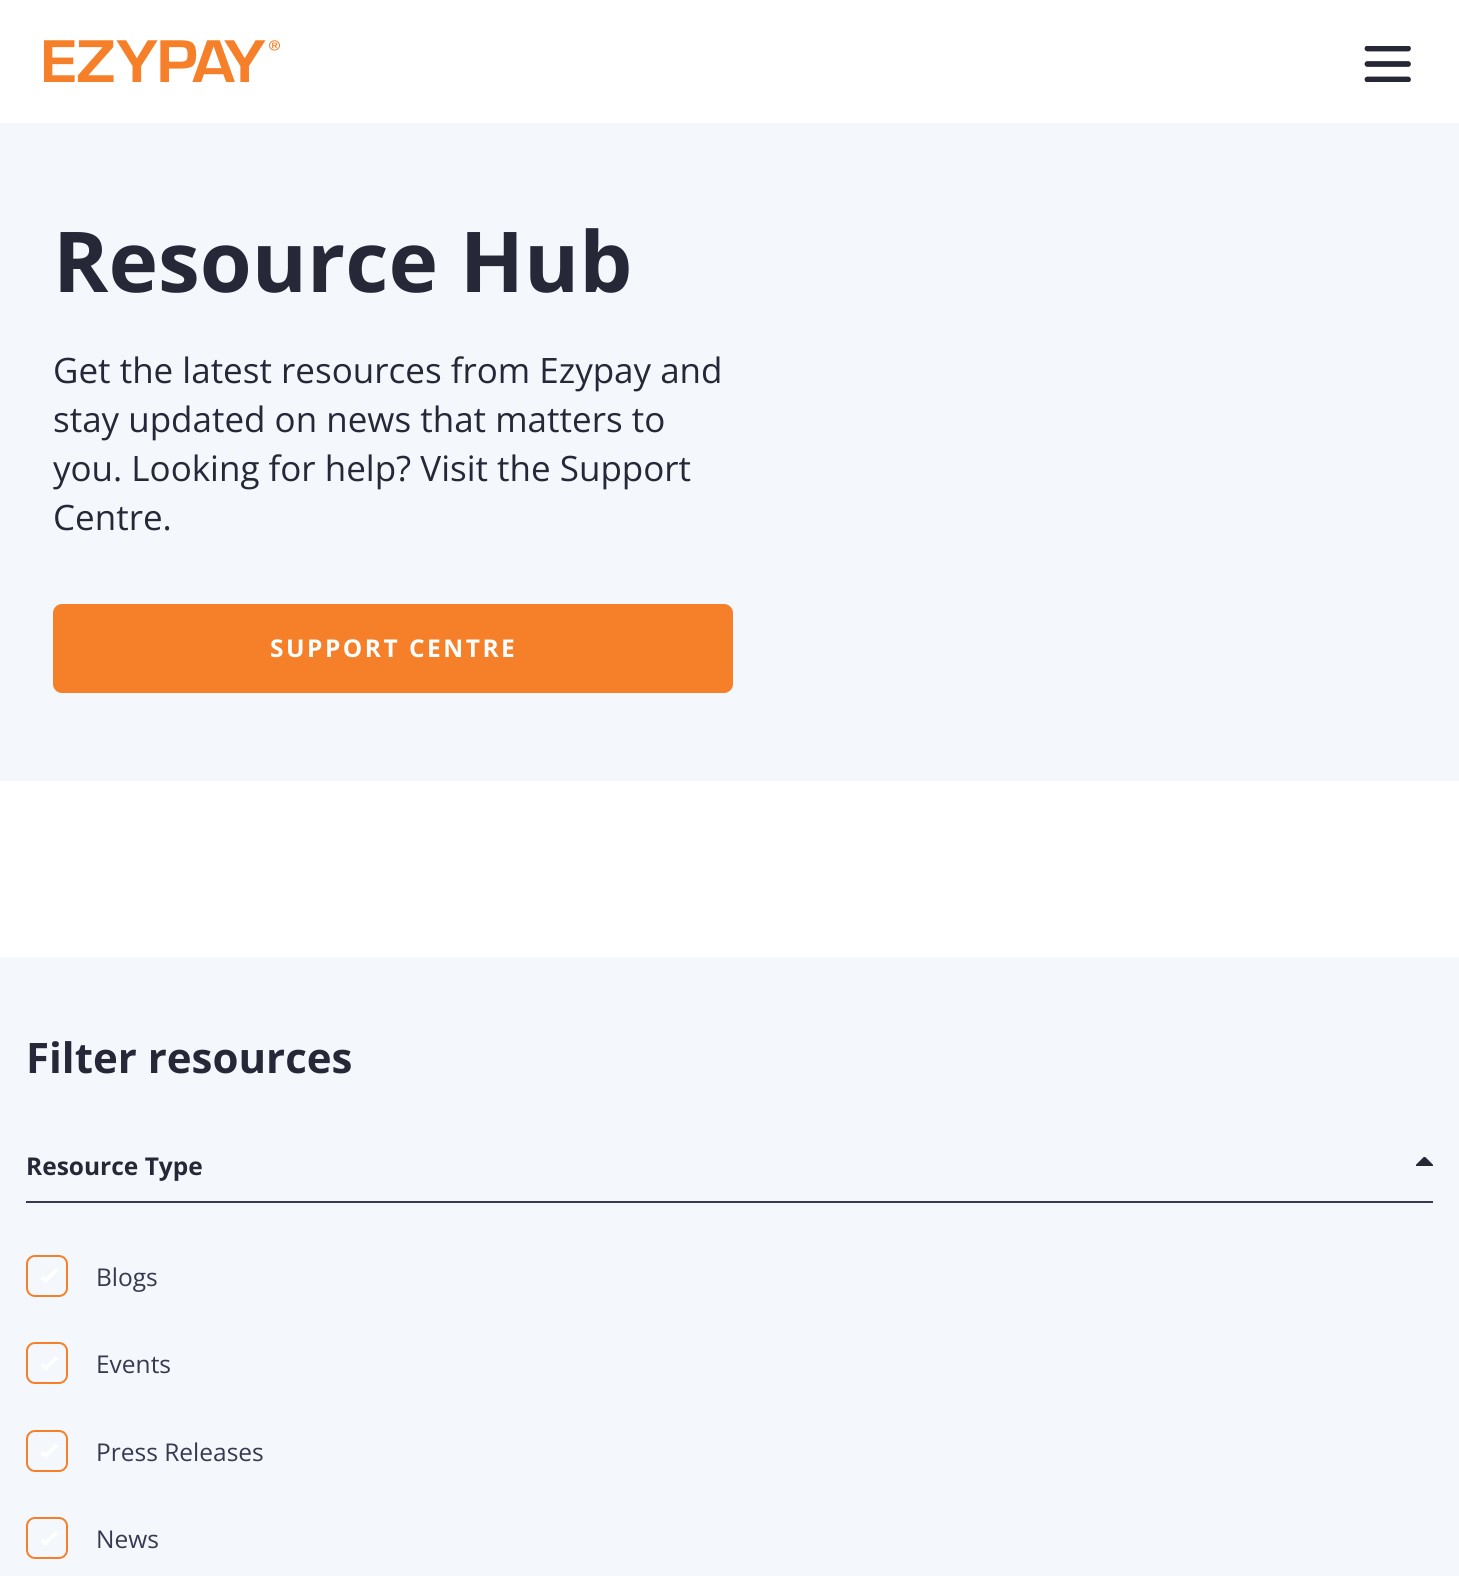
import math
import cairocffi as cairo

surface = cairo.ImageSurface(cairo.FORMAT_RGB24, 1459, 1576)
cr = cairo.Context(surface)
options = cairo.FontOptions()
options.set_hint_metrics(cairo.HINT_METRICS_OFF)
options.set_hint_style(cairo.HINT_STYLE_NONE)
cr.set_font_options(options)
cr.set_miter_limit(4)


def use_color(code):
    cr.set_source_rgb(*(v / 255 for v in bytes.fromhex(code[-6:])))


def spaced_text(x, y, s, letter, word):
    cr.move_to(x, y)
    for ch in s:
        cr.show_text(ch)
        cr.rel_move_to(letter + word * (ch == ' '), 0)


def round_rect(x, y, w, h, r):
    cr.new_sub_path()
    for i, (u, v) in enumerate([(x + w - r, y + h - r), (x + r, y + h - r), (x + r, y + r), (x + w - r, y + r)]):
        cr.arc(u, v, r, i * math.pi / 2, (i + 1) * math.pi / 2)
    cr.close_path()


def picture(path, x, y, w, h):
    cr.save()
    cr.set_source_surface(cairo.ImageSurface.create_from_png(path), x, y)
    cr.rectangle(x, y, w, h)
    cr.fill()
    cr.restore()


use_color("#ffffff")
cr.paint()
picture("img1.png", 44, 40, 236, 42)
cr.save()
cr.rectangle(1362, 46, 52, 36)
cr.clip()
cr.new_path()
cr.move_to(1367.5, 48.5)
cr.line_to(1408, 48.5)
use_color("#262838")
cr.set_line_width(5.8)
cr.set_line_cap(cairo.LINE_CAP_ROUND)
cr.stroke()
cr.restore()
cr.new_path()
cr.move_to(1367.5, 64)
cr.line_to(1408, 64)
use_color("#262838")
cr.set_line_width(5.8)
cr.set_line_cap(cairo.LINE_CAP_ROUND)
cr.stroke()
cr.save()
cr.rectangle(1362, 46, 52, 36)
cr.clip()
cr.new_path()
cr.move_to(1367.5, 79.5)
cr.line_to(1408, 79.5)
cr.stroke()
cr.restore()
use_color("#f4f8fc")
cr.rectangle(0, 123, 1459, 658)
cr.fill()
cr.select_font_face("Open Sans", cairo.FONT_SLANT_NORMAL, cairo.FONT_WEIGHT_BOLD)
cr.set_font_size(84)
use_color("#262838")
cr.move_to(53, 292)
cr.show_text("Resource Hub")
cr.select_font_face("Open Sans")
cr.set_font_size(35)
cr.move_to(53, 383)
cr.show_text("Get the latest resources from Ezypay and")
cr.move_to(53, 432)
cr.show_text("stay updated on news that matters to")
cr.move_to(53, 481)
cr.show_text("you. Looking for help? Visit the Support")
cr.move_to(53, 530)
cr.show_text("Centre.")
use_color("#f58029")
round_rect(54, 605, 678, 87, 8)
cr.fill_preserve()
cr.set_line_width(2)
cr.set_line_cap(cairo.LINE_CAP_BUTT)
cr.stroke()
cr.select_font_face("Open Sans", cairo.FONT_SLANT_NORMAL, cairo.FONT_WEIGHT_BOLD)
cr.set_font_size(24.5)
use_color("#ffffff")
spaced_text(270, 657, "SUPPORT CENTRE", 2.5, 0)
use_color("#f4f8fc")
cr.rectangle(0, 957, 1459, 619)
cr.fill()
cr.set_font_size(42)
use_color("#262838")
cr.move_to(26, 1073)
cr.show_text("Filter resources")
use_color("#36394f")
cr.rectangle(26, 1201, 1407, 2)
cr.fill()
cr.set_font_size(24.5)
use_color("#262838")
cr.move_to(26, 1175)
cr.show_text("Resource Type")
picture("img2.png", 1416, 1157, 17, 9)
round_rect(27, 1256, 40, 40, 8)
use_color("#f58029")
cr.stroke()
use_color("#ffffff")
cr.new_path()
cr.move_to(55.5, 1268.5)
cr.line_to(58, 1271)
cr.line_to(45.5, 1283)
cr.line_to(43, 1281)
cr.close_path()
cr.fill()
cr.new_path()
cr.move_to(43, 1276)
cr.line_to(48, 1281)
cr.line_to(45.5, 1283)
cr.line_to(40.5, 1278.5)
cr.close_path()
cr.fill()
cr.select_font_face("Open Sans")
use_color("#36394f")
cr.move_to(96, 1286)
cr.show_text("Blogs")
round_rect(27, 1343, 40, 40, 8)
use_color("#f58029")
cr.stroke()
use_color("#ffffff")
cr.new_path()
cr.move_to(55.5, 1356)
cr.line_to(58, 1358.5)
cr.line_to(45.5, 1370.5)
cr.line_to(43, 1368.5)
cr.close_path()
cr.fill()
cr.new_path()
cr.move_to(43, 1363.5)
cr.line_to(48, 1368.5)
cr.line_to(45.5, 1370.5)
cr.line_to(40.5, 1366)
cr.close_path()
cr.fill()
use_color("#36394f")
cr.move_to(96, 1373)
cr.show_text("Events")
round_rect(27, 1431, 40, 40, 8)
use_color("#f58029")
cr.stroke()
use_color("#ffffff")
cr.new_path()
cr.move_to(55.5, 1443.5)
cr.line_to(58, 1446)
cr.line_to(45.5, 1458)
cr.line_to(43, 1456)
cr.close_path()
cr.fill()
cr.new_path()
cr.move_to(43, 1451)
cr.line_to(48, 1456)
cr.line_to(45.5, 1458)
cr.line_to(40.5, 1453.5)
cr.close_path()
cr.fill()
use_color("#36394f")
cr.move_to(96, 1461)
cr.show_text("Press Releases")
round_rect(27, 1518, 40, 40, 8)
use_color("#f58029")
cr.stroke()
use_color("#ffffff")
cr.new_path()
cr.move_to(55.5, 1531)
cr.line_to(58, 1533.5)
cr.line_to(45.5, 1545.5)
cr.line_to(43, 1543.5)
cr.close_path()
cr.fill()
cr.new_path()
cr.move_to(43, 1538.5)
cr.line_to(48, 1543.5)
cr.line_to(45.5, 1545.5)
cr.line_to(40.5, 1541)
cr.close_path()
cr.fill()
use_color("#36394f")
cr.move_to(96, 1548)
cr.show_text("News")
surface.write_to_png("result.png")
